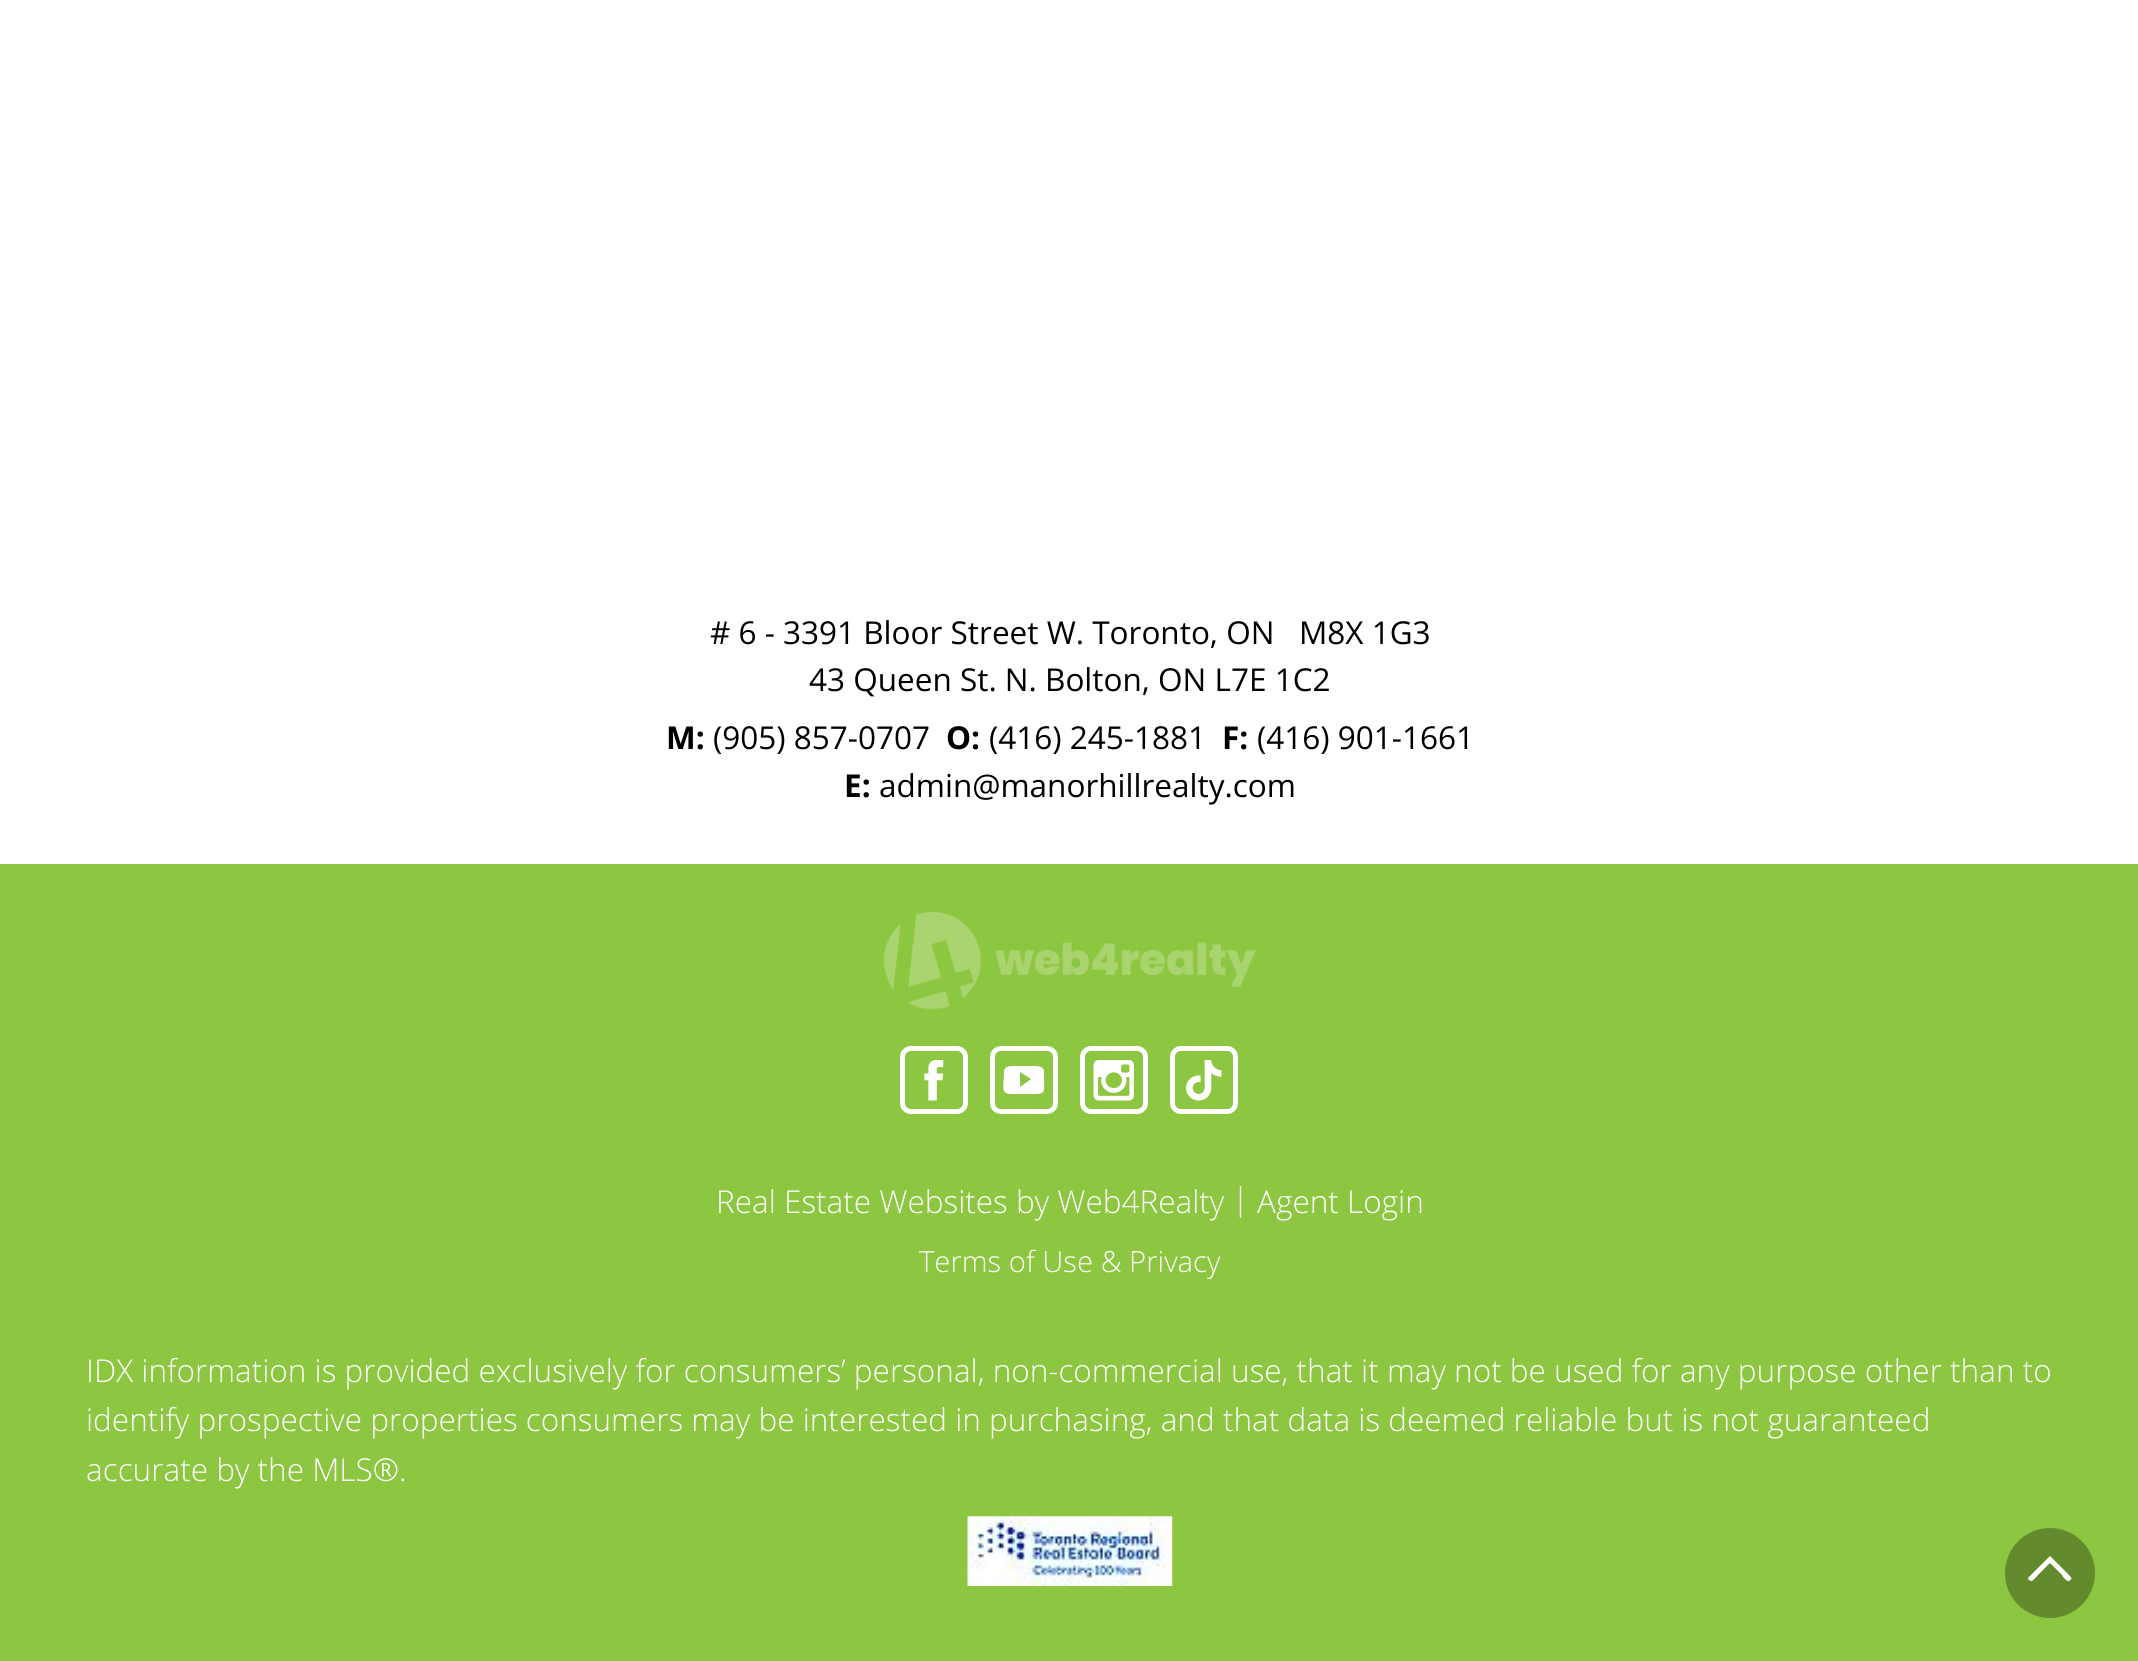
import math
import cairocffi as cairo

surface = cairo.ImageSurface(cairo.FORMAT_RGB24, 2138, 1661)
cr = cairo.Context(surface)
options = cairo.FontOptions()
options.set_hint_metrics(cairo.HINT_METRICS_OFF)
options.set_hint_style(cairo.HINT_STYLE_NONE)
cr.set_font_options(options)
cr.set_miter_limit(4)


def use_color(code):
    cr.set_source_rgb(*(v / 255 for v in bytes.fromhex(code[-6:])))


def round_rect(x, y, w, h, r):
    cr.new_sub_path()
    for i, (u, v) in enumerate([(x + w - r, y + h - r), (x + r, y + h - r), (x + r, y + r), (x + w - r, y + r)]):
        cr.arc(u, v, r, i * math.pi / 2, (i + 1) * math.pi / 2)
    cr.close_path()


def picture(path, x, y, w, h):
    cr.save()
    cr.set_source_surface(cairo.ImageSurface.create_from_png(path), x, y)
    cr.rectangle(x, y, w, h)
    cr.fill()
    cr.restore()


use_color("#ffffff")
cr.paint()
cr.select_font_face("Open Sans")
cr.set_font_size(31.5)
use_color("#000000")
cr.move_to(710, 644)
cr.show_text("# 6 - 3391 Bloor Street W. Toronto, ON   M8X 1G3")
cr.move_to(809, 691)
cr.show_text("43 Queen St. N. Bolton, ON L7E 1C2")
cr.select_font_face("Open Sans", cairo.FONT_SLANT_NORMAL, cairo.FONT_WEIGHT_BOLD)
cr.move_to(666, 749)
cr.show_text("M:")
cr.select_font_face("Open Sans")
cr.move_to(713, 749)
cr.show_text("(905) 857-0707")
cr.select_font_face("Open Sans", cairo.FONT_SLANT_NORMAL, cairo.FONT_WEIGHT_BOLD)
cr.move_to(946, 749)
cr.show_text("O:")
cr.select_font_face("Open Sans")
cr.move_to(989, 749)
cr.show_text("(416) 245-1881")
cr.select_font_face("Open Sans", cairo.FONT_SLANT_NORMAL, cairo.FONT_WEIGHT_BOLD)
cr.move_to(1222, 749)
cr.show_text("F:")
cr.select_font_face("Open Sans")
cr.move_to(1257, 749)
cr.show_text("(416) 901-1661")
cr.select_font_face("Open Sans", cairo.FONT_SLANT_NORMAL, cairo.FONT_WEIGHT_BOLD)
cr.move_to(844, 797)
cr.show_text("E:")
cr.select_font_face("Open Sans")
cr.move_to(879, 797)
cr.show_text("admin@manorhillrealty.com")
use_color("#8dc640")
cr.rectangle(0, 864, 2138, 797)
cr.fill()
picture("img1.png", 883, 911, 373, 99)
round_rect(902.5, 1048.5, 63, 63, 8.5)
use_color("#ffffff")
cr.set_line_width(5)
cr.stroke()
picture("img2.png", 924, 1060, 20, 41)
round_rect(992.5, 1048.5, 63, 63, 8.5)
cr.stroke()
cr.new_path()
cr.move_to(1044, 1072)
cr.curve_to(1044, 1066, 1038, 1066, 1033, 1066)
cr.line_to(1014, 1066)
cr.curve_to(1010, 1066, 1004, 1066, 1004, 1072)
cr.curve_to(1003, 1096, 1000, 1094, 1024, 1094)
cr.curve_to(1048, 1094, 1044, 1096, 1044, 1072)
cr.close_path()
cr.move_to(1020, 1087)
cr.line_to(1020, 1072)
cr.line_to(1031, 1079)
cr.close_path()
cr.fill()
round_rect(1082.5, 1048.5, 63, 63, 8.5)
cr.stroke()
picture("img3.png", 1093, 1060, 41, 41)
round_rect(1172.5, 1048.5, 63, 63, 8.5)
cr.stroke()
picture("img4.png", 1186, 1060, 36, 41)
cr.select_font_face("Open Sans Light")
cr.move_to(716, 1213)
cr.show_text("Real Estate Websites by Web4Realty")
cr.move_to(1232, 1210)
cr.show_text("|")
cr.move_to(1257, 1213)
cr.show_text("Agent Login")
cr.set_font_size(29.25)
cr.move_to(919, 1272)
cr.show_text("Terms of Use & Privacy")
cr.set_font_size(31.5)
cr.move_to(86, 1382)
cr.show_text("IDX information is provided exclusively for consumers’ personal, non-commercial use, that it may not be used for any purpose other than to")
cr.move_to(86, 1431)
cr.show_text("identify prospective properties consumers may be interested in purchasing, and that data is deemed reliable but is not guaranteed")
cr.move_to(86, 1481)
cr.show_text("accurate by the MLS®.")
picture("img5.png", 967, 1516, 206, 70)
use_color("#638b2d")
cr.arc(2050, 1573, 45, 0, 2 * math.pi)
cr.fill()
use_color("#ffffff")
cr.new_path()
cr.move_to(2050, 1563)
cr.line_to(2062, 1575)
cr.curve_to(2062, 1576, 2067, 1582, 2069, 1581)
cr.curve_to(2074, 1578, 2070, 1577, 2068, 1574)
cr.line_to(2050, 1556)
cr.line_to(2032, 1574)
cr.curve_to(2030, 1576, 2025, 1579, 2031, 1581)
cr.curve_to(2032, 1582, 2037, 1576, 2038, 1575)
cr.close_path()
cr.fill()
surface.write_to_png("result.png")
